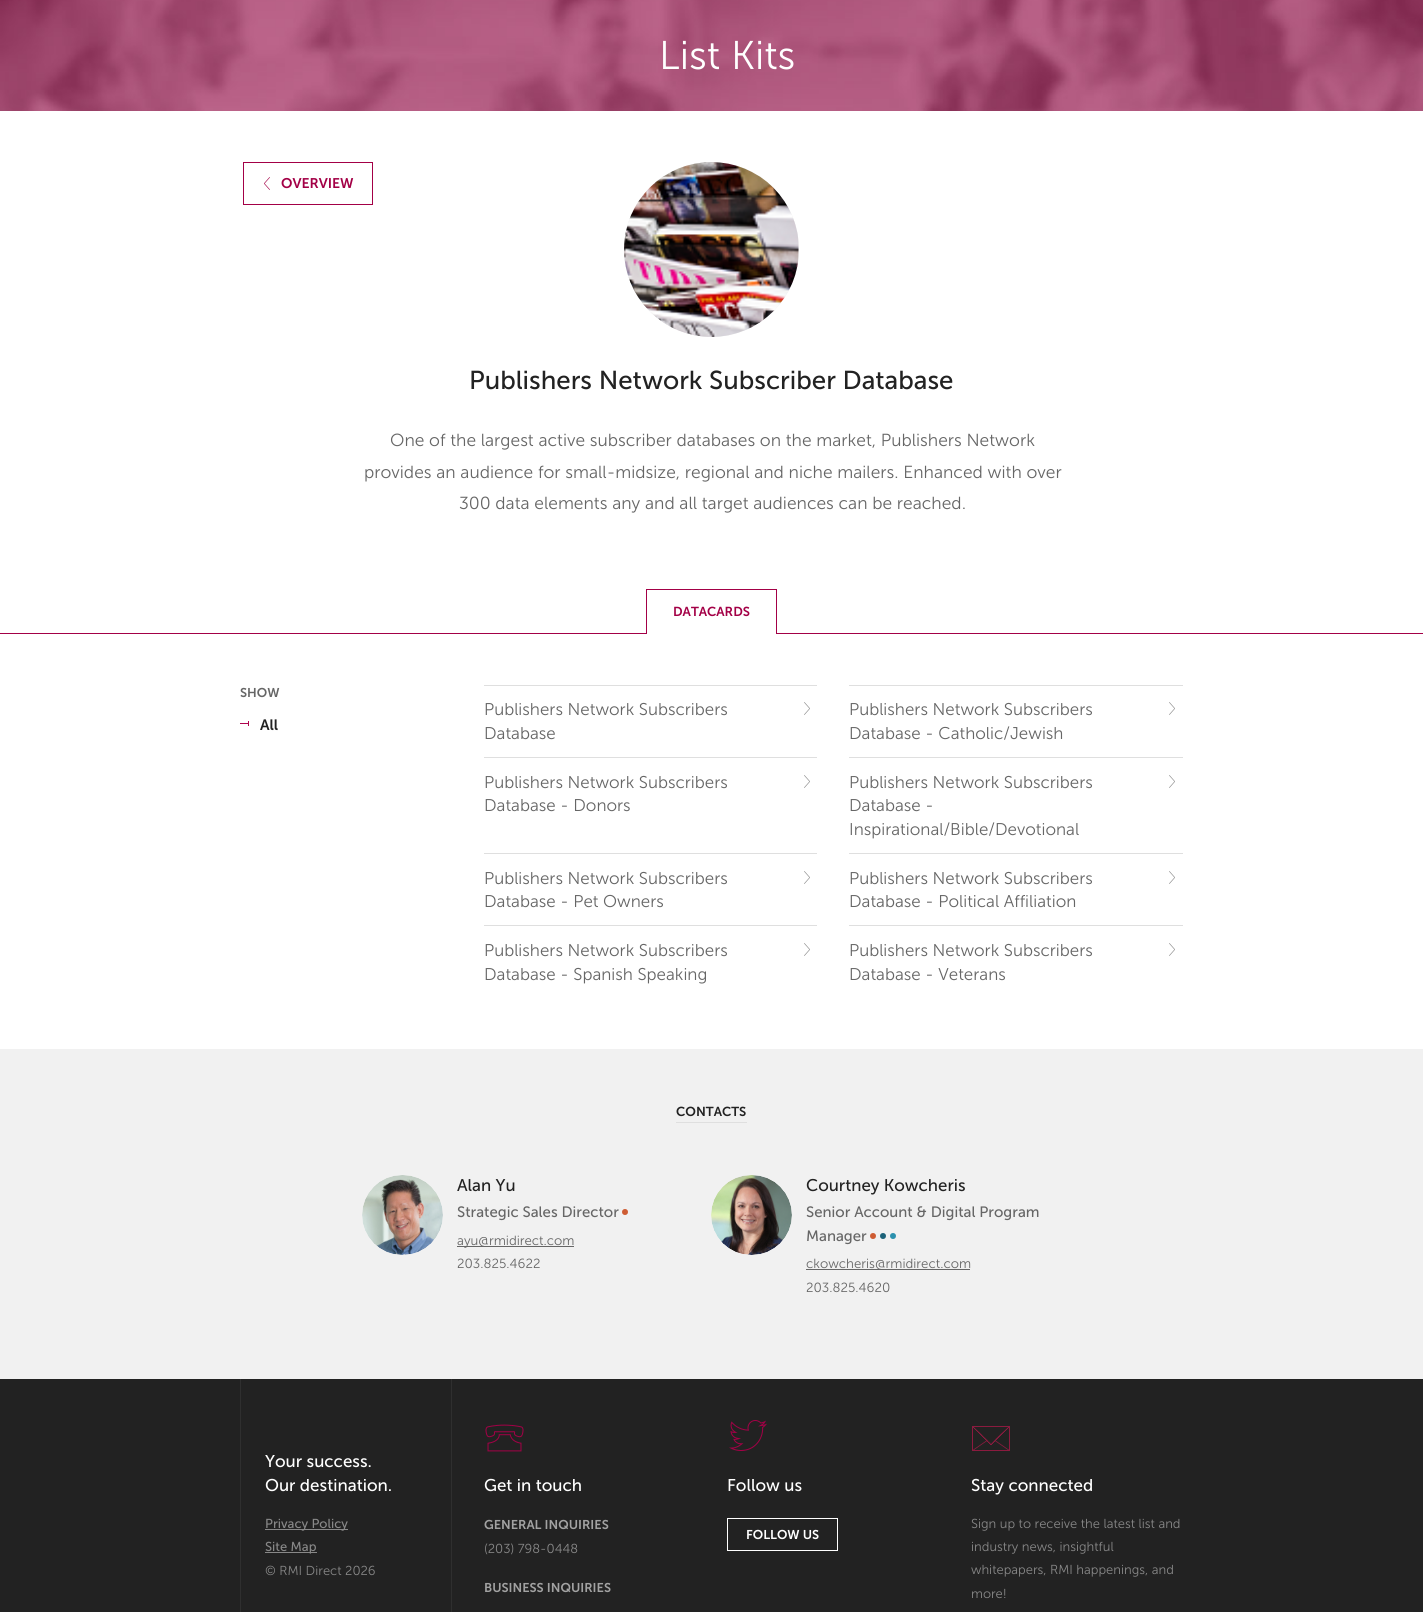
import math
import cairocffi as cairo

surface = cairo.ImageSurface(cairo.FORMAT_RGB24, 1423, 1612)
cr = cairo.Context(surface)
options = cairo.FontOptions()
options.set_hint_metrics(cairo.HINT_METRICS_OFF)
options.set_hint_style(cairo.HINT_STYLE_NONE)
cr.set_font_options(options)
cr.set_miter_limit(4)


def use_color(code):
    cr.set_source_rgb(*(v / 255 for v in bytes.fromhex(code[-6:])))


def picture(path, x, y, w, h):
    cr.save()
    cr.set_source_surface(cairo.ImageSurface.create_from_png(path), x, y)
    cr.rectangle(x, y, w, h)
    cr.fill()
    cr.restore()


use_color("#ffffff")
cr.paint()
picture("img1.png", 0, 0, 1423, 111)
cr.select_font_face("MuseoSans")
cr.set_font_size(40)
use_color("#ffffff")
cr.move_to(659, 69)
cr.show_text("List Kits")
cr.rectangle(243.5, 162.5, 129, 42)
use_color("#a30046")
cr.set_line_width(1)
cr.stroke()
picture("img2.png", 264, 177, 6, 13)
cr.select_font_face("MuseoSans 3")
cr.set_font_size(14)
cr.move_to(281, 188)
cr.show_text("OVERVIEW")
use_color("#f1f1f1")
cr.new_path()
cr.arc(711.5, 249.5, 87.5, 0, 2 * math.pi)
cr.fill()
picture("img3.png", 624, 162, 175, 175)
cr.select_font_face("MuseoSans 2")
cr.set_font_size(25.9)
use_color("#222222")
cr.move_to(469, 389)
cr.show_text("Publishers Network Subscriber Database")
cr.select_font_face("MuseoSans")
cr.set_font_size(17.45)
use_color("#666666")
cr.move_to(390, 446)
cr.show_text("One of the largest active subscriber databases on the market, Publishers Network")
cr.move_to(364, 478)
cr.show_text("provides an audience for small-midsize, regional and niche mailers. Enhanced with over")
cr.move_to(459, 509)
cr.show_text("300 data elements any and all target audiences can be reached.")
use_color("#a30046")
cr.rectangle(0, 633, 1423, 1)
cr.fill()
cr.rectangle(646, 589, 131, 1)
cr.fill()
cr.rectangle(776, 589, 1, 44)
cr.fill()
cr.rectangle(646, 589, 1, 44)
cr.fill()
use_color("#ffffff")
cr.rectangle(647, 633, 129, 1)
cr.fill()
cr.select_font_face("MuseoSans 3")
cr.set_font_size(13)
use_color("#a30046")
cr.move_to(673, 616)
cr.show_text("DATACARDS")
cr.set_font_size(12.75)
use_color("#666666")
cr.move_to(240, 697)
cr.show_text("SHOW")
picture("img4.png", 240, 721, 9, 5)
cr.set_font_size(15)
use_color("#222222")
cr.move_to(260, 730)
cr.show_text("All")
picture("img5.png", 804, 702, 6, 13)
use_color("#dfdfdf")
cr.rectangle(484, 685, 333, 1)
cr.fill()
cr.select_font_face("MuseoSans")
cr.set_font_size(17)
use_color("#666666")
cr.move_to(484, 715)
cr.show_text("Publishers Network Subscribers")
cr.move_to(484, 739)
cr.show_text("Database")
picture("img5.png", 1169, 702, 6, 13)
use_color("#dfdfdf")
cr.rectangle(849, 685, 334, 1)
cr.fill()
use_color("#666666")
cr.move_to(849, 715)
cr.show_text("Publishers Network Subscribers")
cr.move_to(849, 739)
cr.show_text("Database - Catholic/Jewish")
picture("img5.png", 804, 775, 6, 13)
use_color("#dfdfdf")
cr.rectangle(484, 757, 333, 1)
cr.fill()
use_color("#666666")
cr.move_to(484, 788)
cr.show_text("Publishers Network Subscribers")
cr.move_to(484, 811)
cr.show_text("Database - Donors")
picture("img5.png", 1169, 775, 6, 13)
use_color("#dfdfdf")
cr.rectangle(849, 757, 334, 1)
cr.fill()
use_color("#666666")
cr.move_to(849, 788)
cr.show_text("Publishers Network Subscribers")
cr.move_to(849, 811)
cr.show_text("Database -")
cr.move_to(849, 835)
cr.show_text("Inspirational/Bible/Devotional")
picture("img5.png", 804, 871, 6, 13)
use_color("#dfdfdf")
cr.rectangle(484, 853, 333, 1)
cr.fill()
use_color("#666666")
cr.move_to(484, 884)
cr.show_text("Publishers Network Subscribers")
cr.move_to(484, 907)
cr.show_text("Database - Pet Owners")
picture("img5.png", 1169, 871, 6, 13)
use_color("#dfdfdf")
cr.rectangle(849, 853, 334, 1)
cr.fill()
use_color("#666666")
cr.move_to(849, 884)
cr.show_text("Publishers Network Subscribers")
cr.move_to(849, 907)
cr.show_text("Database - Political Affiliation")
picture("img5.png", 804, 943, 6, 13)
use_color("#dfdfdf")
cr.rectangle(484, 925, 333, 1)
cr.fill()
use_color("#666666")
cr.move_to(484, 956)
cr.show_text("Publishers Network Subscribers")
cr.move_to(484, 980)
cr.show_text("Database - Spanish Speaking")
picture("img5.png", 1169, 943, 6, 13)
use_color("#dfdfdf")
cr.rectangle(849, 925, 334, 1)
cr.fill()
use_color("#666666")
cr.move_to(849, 956)
cr.show_text("Publishers Network Subscribers")
cr.move_to(849, 980)
cr.show_text("Database - Veterans")
use_color("#f1f1f1")
cr.rectangle(0, 1049, 1423, 330)
cr.fill()
use_color("#dfdfdf")
cr.rectangle(676, 1122, 71, 1)
cr.fill()
cr.select_font_face("MuseoSans 3")
cr.set_font_size(13)
use_color("#222222")
cr.move_to(676, 1116)
cr.show_text("CONTACTS")
picture("img6.png", 362, 1175, 81, 80)
cr.select_font_face("MuseoSans 2")
cr.set_font_size(16.9)
cr.move_to(457, 1191)
cr.show_text("Alan Yu")
cr.set_font_size(15)
use_color("#666666")
cr.move_to(457, 1217)
cr.show_text("Strategic Sales Director")
use_color("#ce5c33")
cr.new_path()
cr.arc(625, 1212, 3, 0, 2 * math.pi)
cr.fill()
use_color("#666666")
cr.rectangle(457, 1246, 117, 1)
cr.fill()
cr.select_font_face("MuseoSans")
cr.set_font_size(13.25)
cr.move_to(457, 1245)
cr.show_text("ayu@rmidirect.com")
cr.move_to(457, 1268)
cr.show_text("203.825.4622")
picture("img7.png", 711, 1175, 81, 80)
cr.select_font_face("MuseoSans 2")
cr.set_font_size(16.9)
use_color("#222222")
cr.move_to(806, 1191)
cr.show_text("Courtney Kowcheris")
cr.set_font_size(15)
use_color("#666666")
cr.move_to(806, 1217)
cr.show_text("Senior Account & Digital Program")
cr.move_to(806, 1241)
cr.show_text("Manager")
use_color("#ce5c33")
cr.new_path()
cr.arc(873, 1236, 3, 0, 2 * math.pi)
cr.fill()
use_color("#1c6279")
cr.arc(883, 1236, 3, 0, 2 * math.pi)
cr.fill()
use_color("#2c91ae")
cr.arc(893, 1236, 3, 0, 2 * math.pi)
cr.fill()
use_color("#666666")
cr.rectangle(806, 1269, 164, 1)
cr.fill()
cr.select_font_face("MuseoSans")
cr.set_font_size(13.25)
cr.move_to(806, 1268)
cr.show_text("ckowcheris@rmidirect.com")
cr.move_to(806, 1292)
cr.show_text("203.825.4620")
use_color("#222222")
cr.rectangle(0, 1379, 1423, 233)
cr.fill()
use_color("#2f2f2f")
cr.rectangle(451, 1379, 1, 233)
cr.fill()
cr.rectangle(240, 1379, 1, 233)
cr.fill()
cr.select_font_face("MuseoSans 2")
cr.set_font_size(17)
use_color("#ffffff")
cr.move_to(265, 1467)
cr.show_text("Your success.")
cr.move_to(265, 1491)
cr.show_text("Our destination.")
use_color("#888888")
cr.rectangle(265, 1529, 83, 1)
cr.fill()
cr.set_font_size(13)
cr.move_to(265, 1528)
cr.show_text("Privacy Policy")
cr.rectangle(265, 1552, 52, 1)
cr.fill()
cr.move_to(265, 1551)
cr.show_text("Site Map")
cr.select_font_face("MuseoSans")
cr.move_to(265, 1575)
cr.show_text("© RMI Direct 2026")
picture("img8.png", 485, 1424, 39, 28)
cr.select_font_face("MuseoSans 2")
cr.set_font_size(17)
use_color("#ffffff")
cr.move_to(484, 1491)
cr.show_text("Get in touch")
cr.select_font_face("MuseoSans 3")
cr.set_font_size(12.75)
use_color("#a2a2a2")
cr.move_to(484, 1529)
cr.show_text("GENERAL INQUIRIES")
cr.select_font_face("MuseoSans")
cr.set_font_size(13)
use_color("#888888")
cr.move_to(484, 1553)
cr.show_text("(203) 798-0448")
cr.select_font_face("MuseoSans 3")
cr.set_font_size(12.75)
use_color("#a2a2a2")
cr.move_to(484, 1592)
cr.show_text("BUSINESS INQUIRIES")
picture("img9.png", 729, 1420, 38, 31)
cr.select_font_face("MuseoSans 2")
cr.set_font_size(17)
use_color("#ffffff")
cr.move_to(727, 1491)
cr.show_text("Follow us")
cr.rectangle(727.5, 1518.5, 110, 32)
cr.stroke()
cr.select_font_face("MuseoSans 3")
cr.set_font_size(12.75)
cr.move_to(746, 1539)
cr.show_text("FOLLOW US")
picture("img10.png", 972, 1426, 38, 25)
cr.select_font_face("MuseoSans 2")
cr.set_font_size(17)
cr.move_to(971, 1491)
cr.show_text("Stay connected")
cr.select_font_face("MuseoSans")
cr.set_font_size(13)
use_color("#888888")
cr.move_to(971, 1528)
cr.show_text("Sign up to receive the latest list and")
cr.move_to(971, 1551)
cr.show_text("industry news, insightful")
cr.move_to(971, 1574)
cr.show_text("whitepapers, RMI happenings, and")
cr.move_to(971, 1598)
cr.show_text("more!")
surface.write_to_png("result.png")
